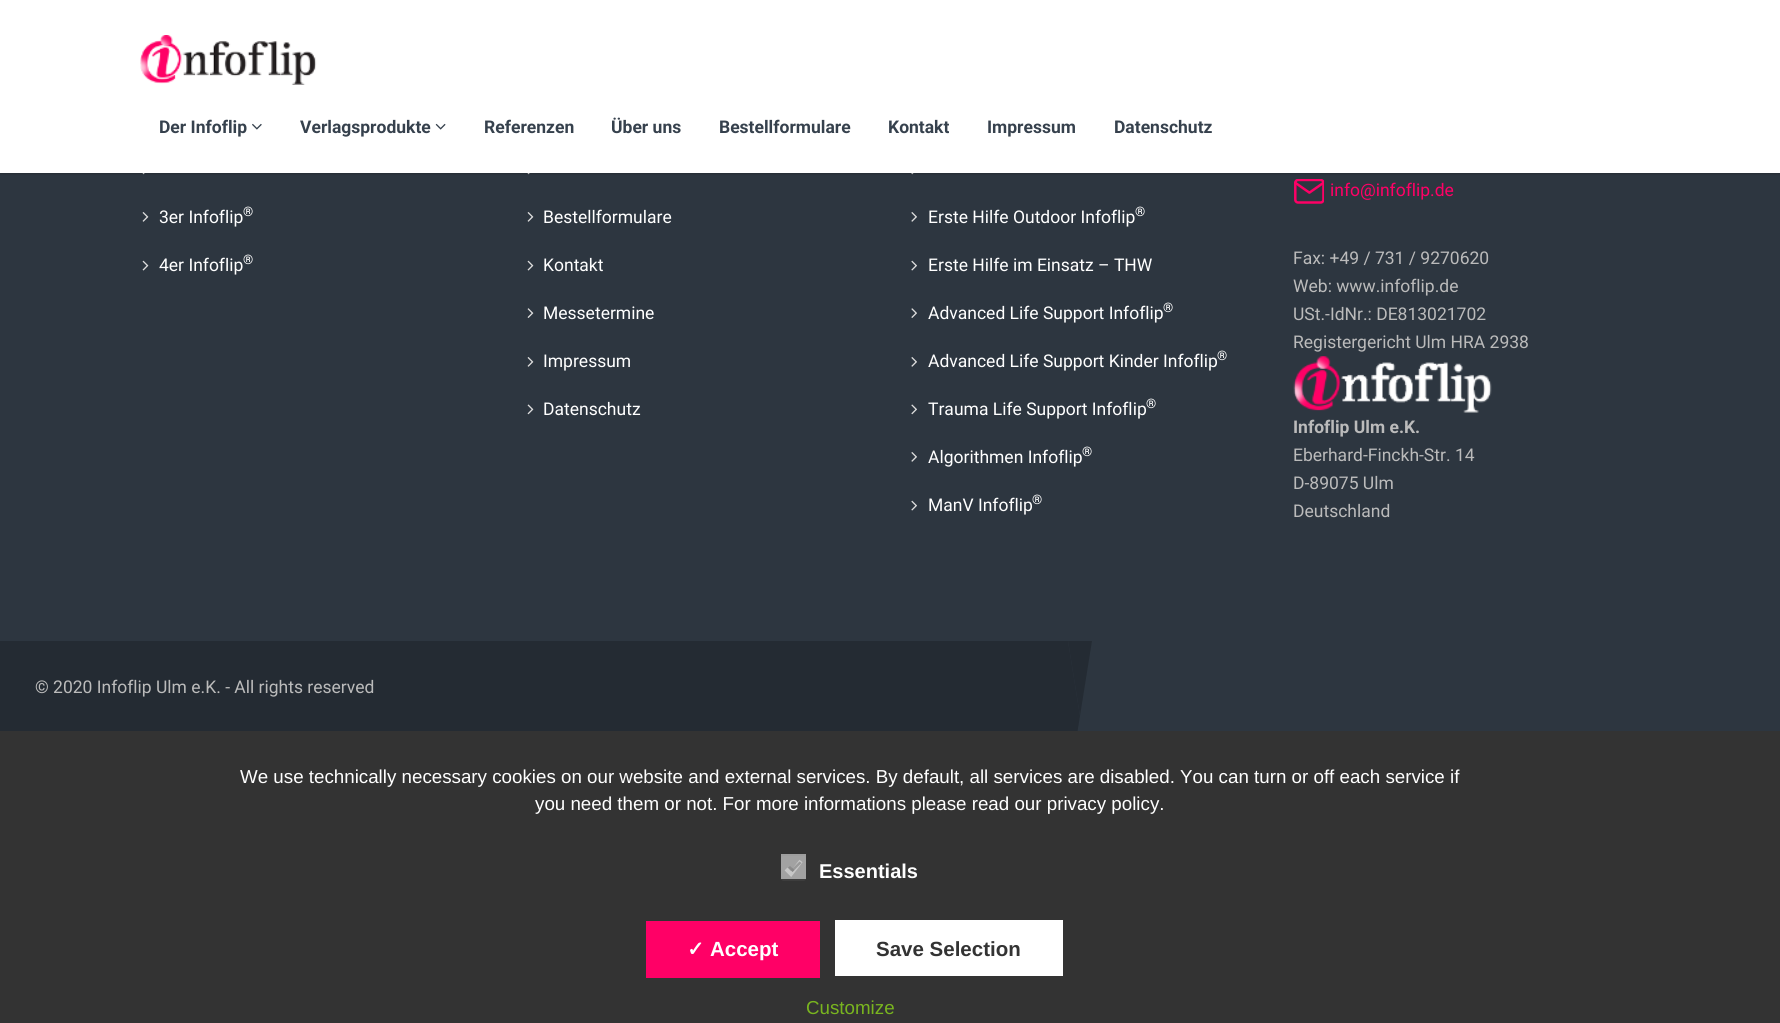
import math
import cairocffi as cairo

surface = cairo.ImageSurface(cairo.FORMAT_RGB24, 1780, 1023)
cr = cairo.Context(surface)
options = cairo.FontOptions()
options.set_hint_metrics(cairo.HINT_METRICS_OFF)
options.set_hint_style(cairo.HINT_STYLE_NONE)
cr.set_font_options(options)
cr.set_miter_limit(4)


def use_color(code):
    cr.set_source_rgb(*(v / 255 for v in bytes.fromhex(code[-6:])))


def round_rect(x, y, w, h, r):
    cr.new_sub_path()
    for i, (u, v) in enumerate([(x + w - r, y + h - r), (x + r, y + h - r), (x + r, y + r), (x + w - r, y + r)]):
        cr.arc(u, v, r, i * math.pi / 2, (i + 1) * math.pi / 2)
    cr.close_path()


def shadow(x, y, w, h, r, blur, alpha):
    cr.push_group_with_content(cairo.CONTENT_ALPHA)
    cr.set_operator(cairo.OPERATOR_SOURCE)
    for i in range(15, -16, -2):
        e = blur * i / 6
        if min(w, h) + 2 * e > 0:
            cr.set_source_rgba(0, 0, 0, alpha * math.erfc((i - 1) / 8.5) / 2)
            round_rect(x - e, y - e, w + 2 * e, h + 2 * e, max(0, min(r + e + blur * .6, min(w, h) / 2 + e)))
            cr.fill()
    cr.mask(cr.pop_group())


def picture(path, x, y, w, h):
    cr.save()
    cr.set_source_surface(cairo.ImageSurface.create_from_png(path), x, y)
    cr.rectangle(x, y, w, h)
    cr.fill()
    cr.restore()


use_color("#2d3640")
cr.paint()
picture("img4.png", 142, 173, 3, 2)
picture("img4.png", 527, 173, 3, 2)
picture("img9.png", 911, 173, 3, 2)
use_color("#000000")
shadow(0, 1, 1780, 173, 0, 1, 0.2)
use_color("#ffffff")
cr.rectangle(0, 0, 1780, 173)
cr.fill()
picture("img1.png", 140, 35, 177, 50)
cr.select_font_face("Roboto", cairo.FONT_SLANT_NORMAL, cairo.FONT_WEIGHT_BOLD)
cr.set_font_size(17.5)
use_color("#36414d")
cr.move_to(159, 133)
cr.show_text("Der Infoflip")
picture("img2.png", 252, 123, 10, 7)
cr.move_to(300, 133)
cr.show_text("Verlagsprodukte")
picture("img3.png", 435, 123, 11, 7)
cr.move_to(484, 133)
cr.show_text("Referenzen")
cr.move_to(611, 133)
cr.show_text("Über uns")
cr.move_to(719, 133)
cr.show_text("Bestellformulare")
cr.move_to(888, 133)
cr.show_text("Kontakt")
cr.move_to(987, 133)
cr.show_text("Impressum")
cr.move_to(1114, 133)
cr.show_text("Datenschutz")
picture("img5.png", 142, 212, 7, 10)
cr.select_font_face("Roboto")
use_color("#ffffff")
cr.move_to(159, 223)
cr.show_text("3er Infoflip")
cr.set_font_size(13)
cr.move_to(243, 216)
cr.show_text("®")
picture("img6.png", 142, 260, 7, 11)
cr.set_font_size(17.5)
cr.move_to(159, 271)
cr.show_text("4er Infoflip")
cr.set_font_size(13)
cr.move_to(243, 264)
cr.show_text("®")
picture("img5.png", 527, 212, 7, 10)
cr.set_font_size(17.5)
cr.move_to(543, 223)
cr.show_text("Bestellformulare")
picture("img6.png", 527, 260, 7, 11)
cr.move_to(543, 271)
cr.show_text("Kontakt")
picture("img7.png", 527, 308, 7, 10)
cr.move_to(543, 319)
cr.show_text("Messetermine")
picture("img5.png", 527, 357, 7, 10)
cr.move_to(543, 367)
cr.show_text("Impressum")
picture("img8.png", 527, 404, 7, 11)
cr.move_to(543, 415)
cr.show_text("Datenschutz")
picture("img10.png", 911, 212, 6, 10)
cr.move_to(928, 223)
cr.show_text("Erste Hilfe Outdoor Infoflip")
cr.set_font_size(13)
cr.move_to(1135, 216)
cr.show_text("®")
picture("img11.png", 911, 260, 6, 11)
cr.set_font_size(17.5)
cr.move_to(928, 271)
cr.show_text("Erste Hilfe im Einsatz – THW")
picture("img12.png", 911, 308, 6, 10)
cr.move_to(928, 319)
cr.show_text("Advanced Life Support Infoflip")
cr.set_font_size(13)
cr.move_to(1163, 312)
cr.show_text("®")
picture("img10.png", 911, 357, 6, 10)
cr.set_font_size(17.5)
cr.move_to(928, 367)
cr.show_text("Advanced Life Support Kinder Infoflip")
cr.set_font_size(13)
cr.move_to(1217, 360)
cr.show_text("®")
picture("img13.png", 911, 404, 6, 11)
cr.set_font_size(17.5)
cr.move_to(928, 415)
cr.show_text("Trauma Life Support Infoflip")
cr.set_font_size(13)
cr.move_to(1146, 408)
cr.show_text("®")
picture("img10.png", 911, 452, 6, 10)
cr.set_font_size(17.5)
cr.move_to(928, 463)
cr.show_text("Algorithmen Infoflip")
cr.set_font_size(13)
cr.move_to(1082, 456)
cr.show_text("®")
picture("img11.png", 911, 500, 6, 11)
cr.set_font_size(17.5)
cr.move_to(928, 511)
cr.show_text("ManV Infoflip")
cr.set_font_size(13)
cr.move_to(1032, 504)
cr.show_text("®")
picture("img14.png", 1294, 179, 30, 25)
cr.set_font_size(17.5)
use_color("#ff0066")
cr.move_to(1330, 196)
cr.show_text("info@infoflip.de")
use_color("#bbbbbb")
cr.move_to(1293, 264)
cr.show_text("Fax: +49 / 731 / 9270620")
cr.move_to(1293, 292)
cr.show_text("Web: www.infoflip.de")
cr.move_to(1293, 320)
cr.show_text("USt.-IdNr.: DE813021702")
cr.move_to(1293, 348)
cr.show_text("Registergericht Ulm HRA 2938")
picture("img15.png", 1293, 356, 199, 57)
cr.select_font_face("Roboto", cairo.FONT_SLANT_NORMAL, cairo.FONT_WEIGHT_BOLD)
cr.move_to(1293, 433)
cr.show_text("Infoflip Ulm e.K.")
cr.select_font_face("Roboto")
cr.move_to(1293, 461)
cr.show_text("Eberhard-Finckh-Str. 14")
cr.move_to(1293, 489)
cr.show_text("D-89075 Ulm")
cr.move_to(1293, 517)
cr.show_text("Deutschland")
use_color("#242b33")
cr.rectangle(0, 641, 1068, 90)
cr.fill()
cr.new_path()
cr.move_to(1068, 641)
cr.line_to(1092, 641)
cr.line_to(1080, 716)
cr.close_path()
cr.fill()
cr.new_path()
cr.move_to(1068, 791)
cr.line_to(1068, 641)
cr.line_to(1080, 716)
cr.close_path()
cr.fill()
use_color("#bbbbbb")
cr.move_to(35, 693)
cr.show_text("© 2020 Infoflip Ulm e.K. - All rights reserved")
use_color("#333333")
cr.rectangle(0, 731, 1780, 292)
cr.fill()
cr.select_font_face("Liberation Sans")
cr.set_font_size(18.75)
use_color("#ffffff")
cr.move_to(240, 783)
cr.show_text("We use technically necessary cookies on our website and external services. By default, all services are disabled. You can turn or off each service if")
cr.move_to(535, 810)
cr.show_text("you need them or not. For more informations please read our privacy policy.")
use_color("#3d3d3d")
round_rect(781, 856, 25, 25, 2.5)
cr.fill()
cr.new_path()
cr.move_to(786, 869)
cr.line_to(791, 874)
cr.line_to(801, 861)
use_color("#999999")
cr.set_line_width(4)
cr.stroke()
cr.set_source_rgba(0.902, 0.902, 0.902, 0.6)
cr.rectangle(781, 854, 25, 25)
cr.fill()
cr.set_source_rgba(0.482, 0.482, 0.482, 0.6)
cr.new_path()
cr.move_to(799.5, 861.5)
cr.line_to(801.5, 863)
cr.line_to(792.5, 872)
cr.line_to(791, 870)
cr.close_path()
cr.fill()
cr.new_path()
cr.move_to(790, 866)
cr.line_to(794.5, 870)
cr.line_to(792.5, 872)
cr.line_to(788, 867.5)
cr.close_path()
cr.fill()
cr.select_font_face("Liberation Sans", cairo.FONT_SLANT_NORMAL, cairo.FONT_WEIGHT_BOLD)
cr.set_font_size(20)
use_color("#ffffff")
cr.move_to(819, 878)
cr.show_text("Essentials")
use_color("#ff0066")
cr.rectangle(646, 921, 174, 57)
cr.fill()
cr.select_font_face("DejaVu Sans", cairo.FONT_SLANT_NORMAL, cairo.FONT_WEIGHT_BOLD)
cr.set_font_size(20.5)
use_color("#ffffff")
cr.move_to(687, 956)
cr.show_text("✓")
cr.select_font_face("Liberation Sans", cairo.FONT_SLANT_NORMAL, cairo.FONT_WEIGHT_BOLD)
cr.move_to(710, 956)
cr.show_text("Accept")
cr.rectangle(835, 920, 228, 56)
cr.fill()
use_color("#333333")
cr.move_to(876, 956)
cr.show_text("Save Selection")
cr.select_font_face("Liberation Sans")
cr.set_font_size(18.75)
use_color("#79b51f")
cr.move_to(806, 1014)
cr.show_text("Customize")
surface.write_to_png("result.png")
